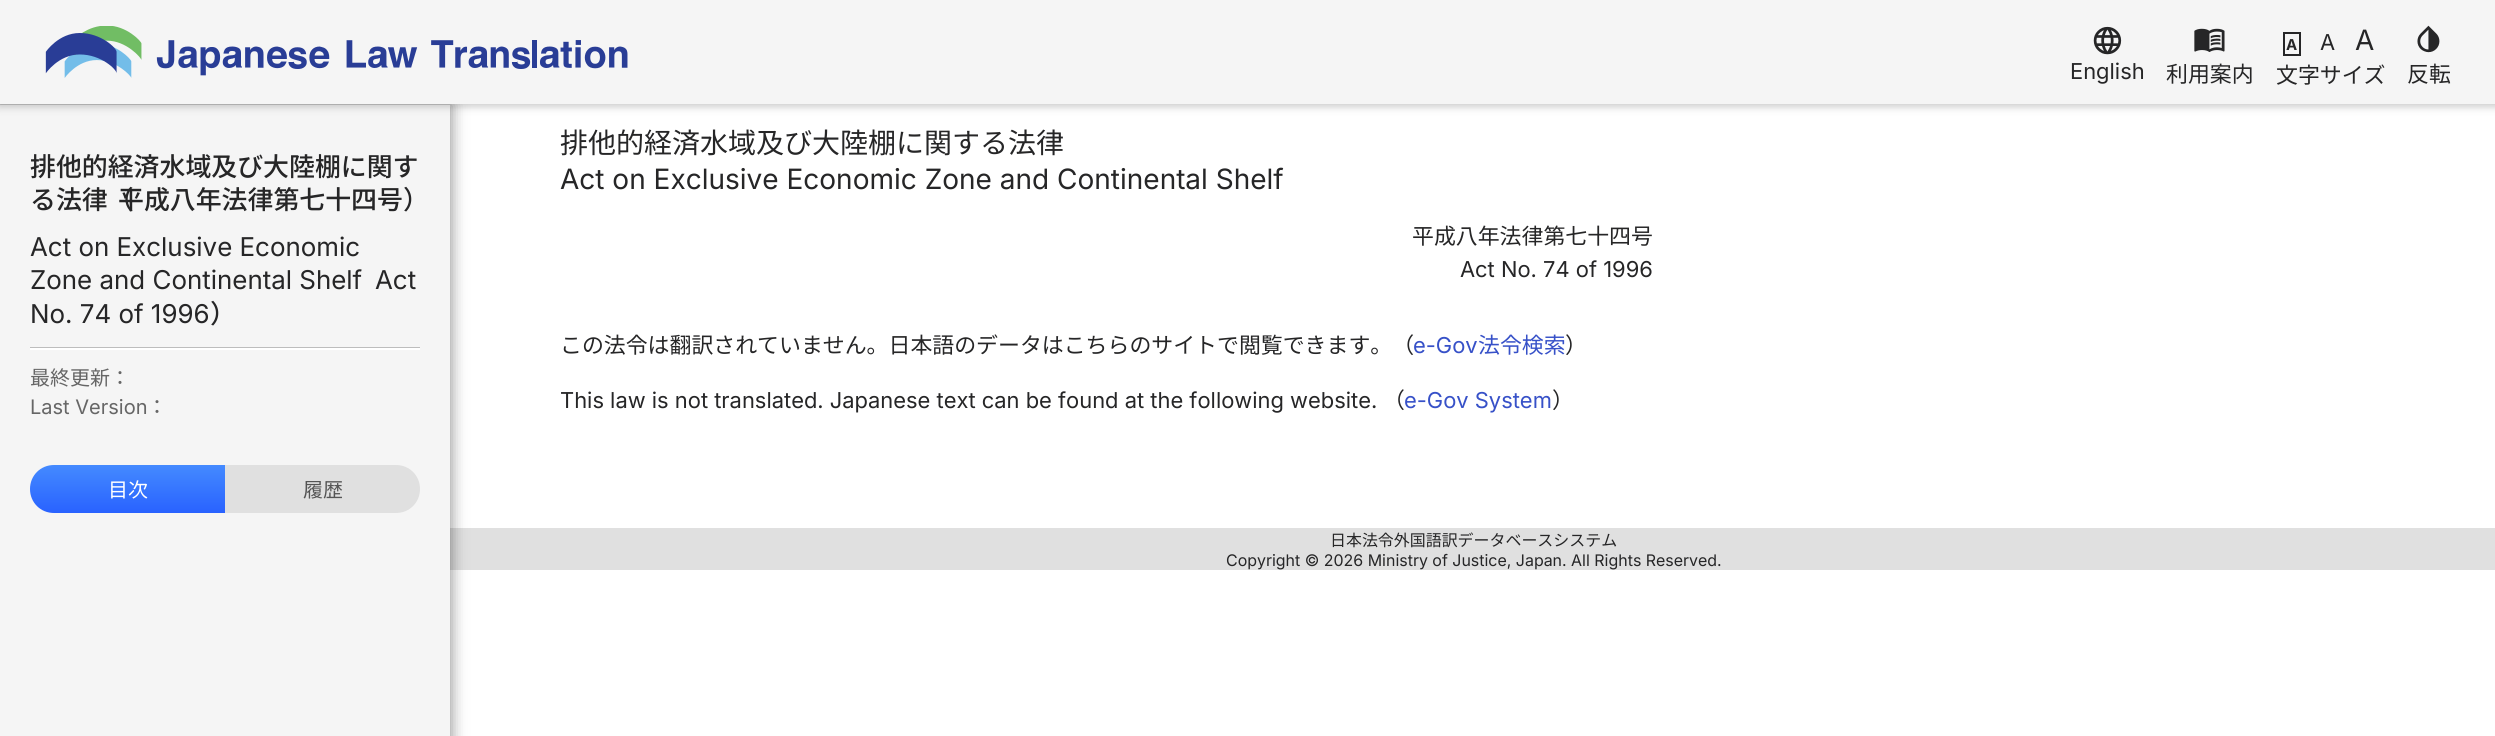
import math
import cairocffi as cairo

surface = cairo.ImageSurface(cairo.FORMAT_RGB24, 2495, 736)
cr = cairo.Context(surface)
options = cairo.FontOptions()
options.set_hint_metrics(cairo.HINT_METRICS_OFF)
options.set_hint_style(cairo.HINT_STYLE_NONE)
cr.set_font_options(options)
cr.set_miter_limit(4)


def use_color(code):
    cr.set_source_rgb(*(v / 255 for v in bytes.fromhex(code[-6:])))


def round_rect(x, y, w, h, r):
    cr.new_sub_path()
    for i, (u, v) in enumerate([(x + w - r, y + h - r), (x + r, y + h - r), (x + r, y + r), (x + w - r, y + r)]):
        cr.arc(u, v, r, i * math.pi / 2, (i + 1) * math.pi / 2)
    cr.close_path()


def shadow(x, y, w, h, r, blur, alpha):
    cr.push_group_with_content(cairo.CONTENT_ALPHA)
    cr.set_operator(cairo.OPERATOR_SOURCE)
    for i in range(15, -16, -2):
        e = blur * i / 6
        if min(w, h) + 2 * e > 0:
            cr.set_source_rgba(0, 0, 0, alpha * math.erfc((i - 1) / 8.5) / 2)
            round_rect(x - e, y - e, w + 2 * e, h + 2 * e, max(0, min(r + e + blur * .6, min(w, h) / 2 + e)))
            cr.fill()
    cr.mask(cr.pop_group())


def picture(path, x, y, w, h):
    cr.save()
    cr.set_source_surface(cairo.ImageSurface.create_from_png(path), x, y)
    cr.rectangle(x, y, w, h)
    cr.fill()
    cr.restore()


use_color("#ffffff")
cr.paint()
use_color("#e0e0e0")
cr.rectangle(450, 528, 2045, 42)
cr.fill()
use_color("#000000")
shadow(-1, 104, 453, 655, 0, 7.5, 0.4)
use_color("#f5f5f5")
cr.rectangle(0, 105, 450, 631)
cr.fill()
use_color("#000000")
shadow(-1, 0, 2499, 107, 0, 4, 0.2)
use_color("#f5f5f5")
cr.rectangle(0, 0, 2495, 104)
cr.fill()
picture("img1.png", 45, 26, 583, 52)
picture("img2.png", 2093, 26, 29, 29)
cr.select_font_face("Inter")
cr.set_font_size(21.9)
use_color("#262627")
cr.move_to(2070, 79)
cr.show_text("English")
picture("img3.png", 2194, 28, 31, 24)
cr.select_font_face("Noto Sans JP")
cr.move_to(2166, 82)
cr.show_text("利用案内")
cr.rectangle(2284, 33, 16, 22)
cr.stroke()
cr.select_font_face("Inter", cairo.FONT_SLANT_NORMAL, cairo.FONT_WEIGHT_BOLD)
cr.set_font_size(15)
cr.move_to(2286, 50)
cr.show_text("A")
cr.select_font_face("Inter")
cr.set_font_size(21.9)
cr.move_to(2320, 50)
cr.show_text("A")
cr.set_font_size(28)
cr.move_to(2355, 50)
cr.show_text("A")
cr.select_font_face("Noto Sans JP")
cr.set_font_size(21.9)
cr.move_to(2276, 83)
cr.show_text("文字サイズ")
picture("img4.png", 2417, 25, 23, 28)
cr.move_to(2407, 82)
cr.show_text("反転")
cr.select_font_face("Noto Sans JP Medium")
cr.set_font_size(25.9)
cr.move_to(30, 176)
cr.show_text("排他的経済水域及び大陸棚に関す")
cr.move_to(30, 209)
cr.show_text("る法律（")
cr.move_to(118, 209)
cr.show_text("平成八年法律第七十四号）")
cr.select_font_face("Inter")
cr.move_to(30, 256)
cr.show_text("Act on Exclusive Economic")
cr.move_to(30, 289)
cr.show_text("Zone and Continental Shelf")
cr.move_to(375, 289)
cr.show_text("Act")
cr.move_to(30, 323)
cr.show_text("No. 74 of 1996")
cr.select_font_face("Noto Sans JP Medium")
cr.move_to(210, 323)
cr.show_text("）")
use_color("#bdbdbd")
cr.rectangle(30, 347, 390, 1)
cr.fill()
use_color("#ffffff")
cr.rectangle(30, 348, 390, 2)
cr.fill()
cr.select_font_face("Noto Sans JP")
cr.set_font_size(20)
use_color("#666666")
cr.move_to(30, 385)
cr.show_text("最終更新：")
cr.select_font_face("Inter")
cr.move_to(30, 414)
cr.show_text("Last Version")
cr.select_font_face("Noto Sans JP")
cr.move_to(147, 414)
cr.show_text("：")
gradient = cairo.LinearGradient(128, 513, 128, 465)
gradient.add_color_stop_rgba(0, 0.161, 0.384, 1, 1)
gradient.add_color_stop_rgba(1, 0.267, 0.541, 1, 1)
cr.set_source(gradient)
cr.new_path()
cr.move_to(54, 465)
cr.line_to(225, 465)
cr.line_to(225, 513)
cr.line_to(54, 513)
cr.curve_to(40.5, 513, 30, 502.5, 30, 489)
cr.curve_to(30, 475.5, 40.5, 465, 54, 465)
cr.close_path()
cr.fill()
use_color("#ffffff")
cr.move_to(108, 497)
cr.show_text("目次")
use_color("#e0e0e0")
cr.new_path()
cr.move_to(225, 465)
cr.line_to(396, 465)
cr.curve_to(409.5, 465, 420, 475.5, 420, 489)
cr.curve_to(420, 502.5, 409.5, 513, 396, 513)
cr.line_to(225, 513)
cr.close_path()
cr.fill()
use_color("#555555")
cr.move_to(303, 497)
cr.show_text("履歴")
cr.set_font_size(28)
use_color("#262627")
cr.move_to(560, 153)
cr.show_text("排他的経済水域及び大陸棚に関する法律")
cr.select_font_face("Inter")
cr.move_to(560, 189)
cr.show_text("Act on Exclusive Economic Zone and Continental Shelf")
cr.select_font_face("Noto Sans JP")
cr.set_font_size(21.9)
cr.move_to(1412, 244)
cr.show_text("平成八年法律第七十四号")
cr.select_font_face("Inter")
cr.move_to(1460, 277)
cr.show_text("Act No. 74 of 1996")
cr.select_font_face("Noto Sans JP")
cr.move_to(560, 353)
cr.show_text("この法令は翻訳されていません。日本語のデータはこちらのサイトで閲覧できます。（")
cr.select_font_face("Inter")
use_color("#3751c8")
cr.move_to(1413, 353)
cr.show_text("e-Gov")
cr.select_font_face("Noto Sans JP")
cr.move_to(1478, 353)
cr.show_text("法令検索")
use_color("#262627")
cr.move_to(1565, 353)
cr.show_text("）")
cr.select_font_face("Inter")
cr.move_to(560, 408)
cr.show_text("This law is not translated. Japanese text can be found at the following website.")
cr.select_font_face("Noto Sans JP")
cr.move_to(1383, 408)
cr.show_text("（")
cr.select_font_face("Inter")
use_color("#3751c8")
cr.move_to(1404, 408)
cr.show_text("e-Gov System")
cr.select_font_face("Noto Sans JP")
use_color("#262627")
cr.move_to(1552, 408)
cr.show_text("）")
cr.set_font_size(15.95)
cr.move_to(1330, 546)
cr.show_text("日本法令外国語訳データベースシステム")
cr.select_font_face("Inter")
cr.move_to(1226, 566)
cr.show_text("Copyright © 2026 Ministry of Justice, Japan. All Rights Reserved.")
surface.write_to_png("result.png")
